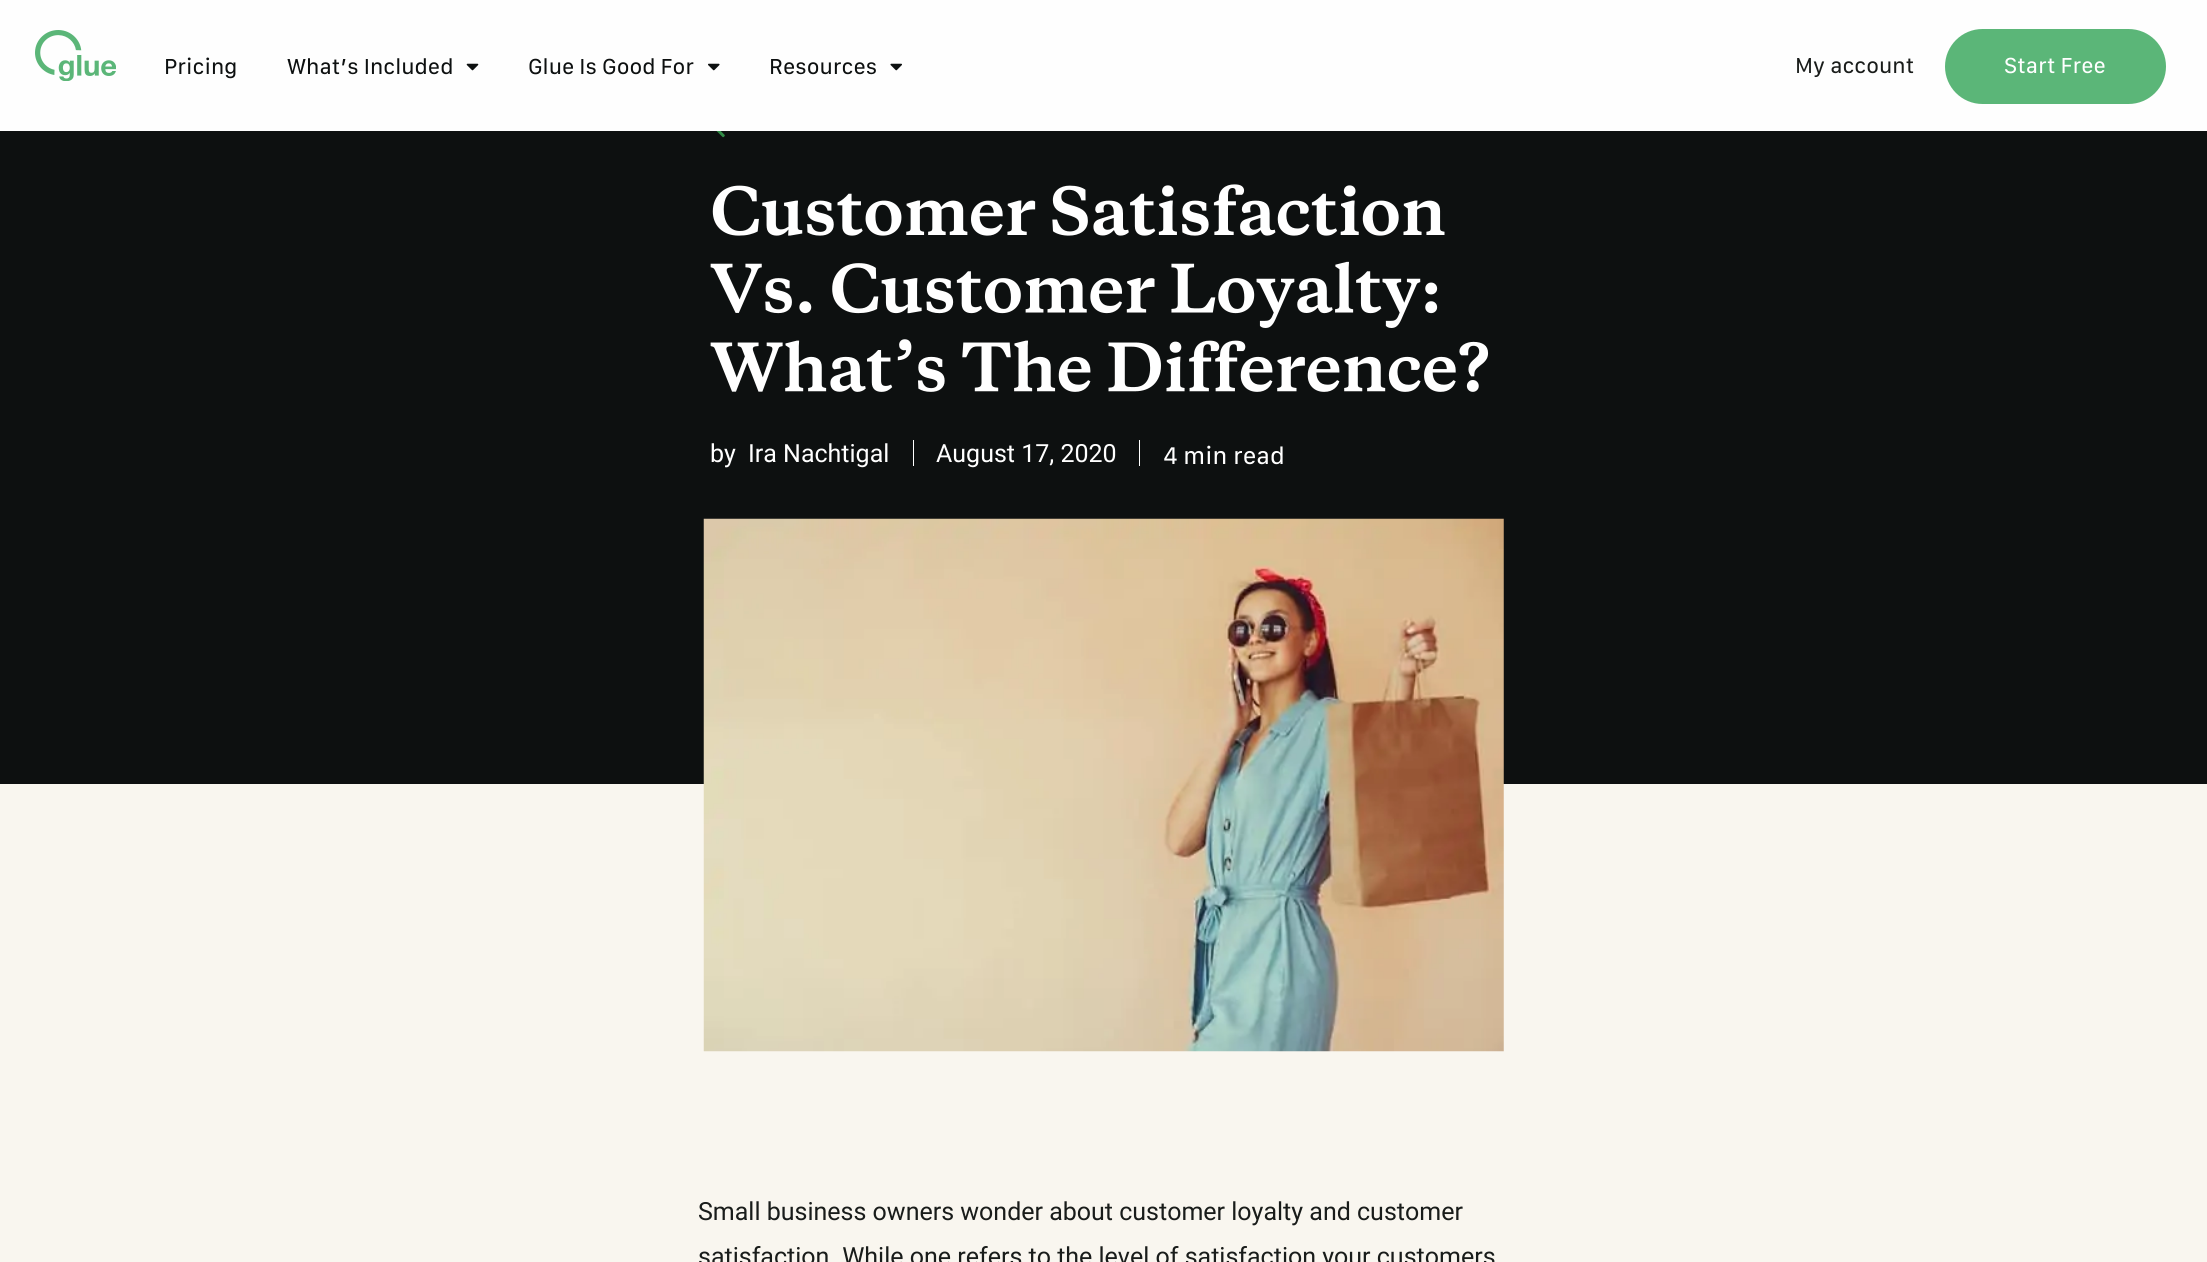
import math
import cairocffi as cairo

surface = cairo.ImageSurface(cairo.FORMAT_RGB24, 2207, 1262)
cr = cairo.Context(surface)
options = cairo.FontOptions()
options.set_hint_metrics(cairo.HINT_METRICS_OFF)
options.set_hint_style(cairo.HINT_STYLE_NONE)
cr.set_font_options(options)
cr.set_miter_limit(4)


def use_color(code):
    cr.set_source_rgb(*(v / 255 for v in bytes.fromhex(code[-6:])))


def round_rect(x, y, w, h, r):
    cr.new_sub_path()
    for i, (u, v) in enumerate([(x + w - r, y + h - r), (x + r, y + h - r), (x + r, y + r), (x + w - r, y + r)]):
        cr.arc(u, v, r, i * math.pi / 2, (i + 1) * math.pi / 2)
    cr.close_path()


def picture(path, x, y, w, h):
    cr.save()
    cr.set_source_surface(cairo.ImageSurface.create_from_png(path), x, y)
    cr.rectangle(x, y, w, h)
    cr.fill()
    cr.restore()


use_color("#f9f6ef")
cr.paint()
use_color("#fefefe")
cr.rectangle(0, 0, 2207, 131)
cr.fill()
picture("img1.png", 35, 30, 81, 51)
cr.select_font_face("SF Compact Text")
cr.set_font_size(22.5)
use_color("#0d1010")
cr.move_to(164, 74)
cr.show_text("Pricing")
cr.move_to(287, 74)
cr.show_text("What’s Included")
picture("img2.png", 466, 63, 13, 8)
cr.move_to(528, 74)
cr.show_text("Glue Is Good For")
picture("img3.png", 708, 63, 12, 8)
cr.move_to(769, 74)
cr.show_text("Resources")
picture("img4.png", 890, 63, 12, 8)
use_color("#191c1a")
cr.move_to(1795, 73)
cr.show_text("My account")
use_color("#5bb678")
round_rect(1945, 29, 221, 75, 37.5)
cr.fill()
use_color("#ffffff")
cr.move_to(2004, 73)
cr.show_text("Start Free")
use_color("#0d1010")
cr.rectangle(0, 131, 2207, 653)
cr.fill()
picture("img5.png", 716, 131, 9, 7)
picture("img6.png", 712, 184, 733, 52)
picture("img7.png", 710, 261, 728, 67)
picture("img8.png", 710, 339, 779, 53)
cr.select_font_face("Roboto")
cr.set_font_size(25)
use_color("#ffffff")
cr.move_to(710, 462)
cr.show_text("by")
cr.rectangle(913, 440, 1, 26)
cr.fill()
cr.move_to(748, 462)
cr.show_text("Ira Nachtigal")
cr.rectangle(1139, 440, 1, 26)
cr.fill()
cr.move_to(936, 462)
cr.show_text("August 17, 2020")
cr.select_font_face("SF Compact Text")
cr.move_to(1163, 464)
cr.show_text("4 min read")
picture("img9.png", 703, 518, 801, 534)
cr.select_font_face("Roboto")
use_color("#191c1a")
cr.move_to(698, 1220)
cr.show_text("Small business owners wonder about customer loyalty and customer")
cr.move_to(698, 1265)
cr.show_text("satisfaction. While one refers to the level of satisfaction your customers")
surface.write_to_png("result.png")
